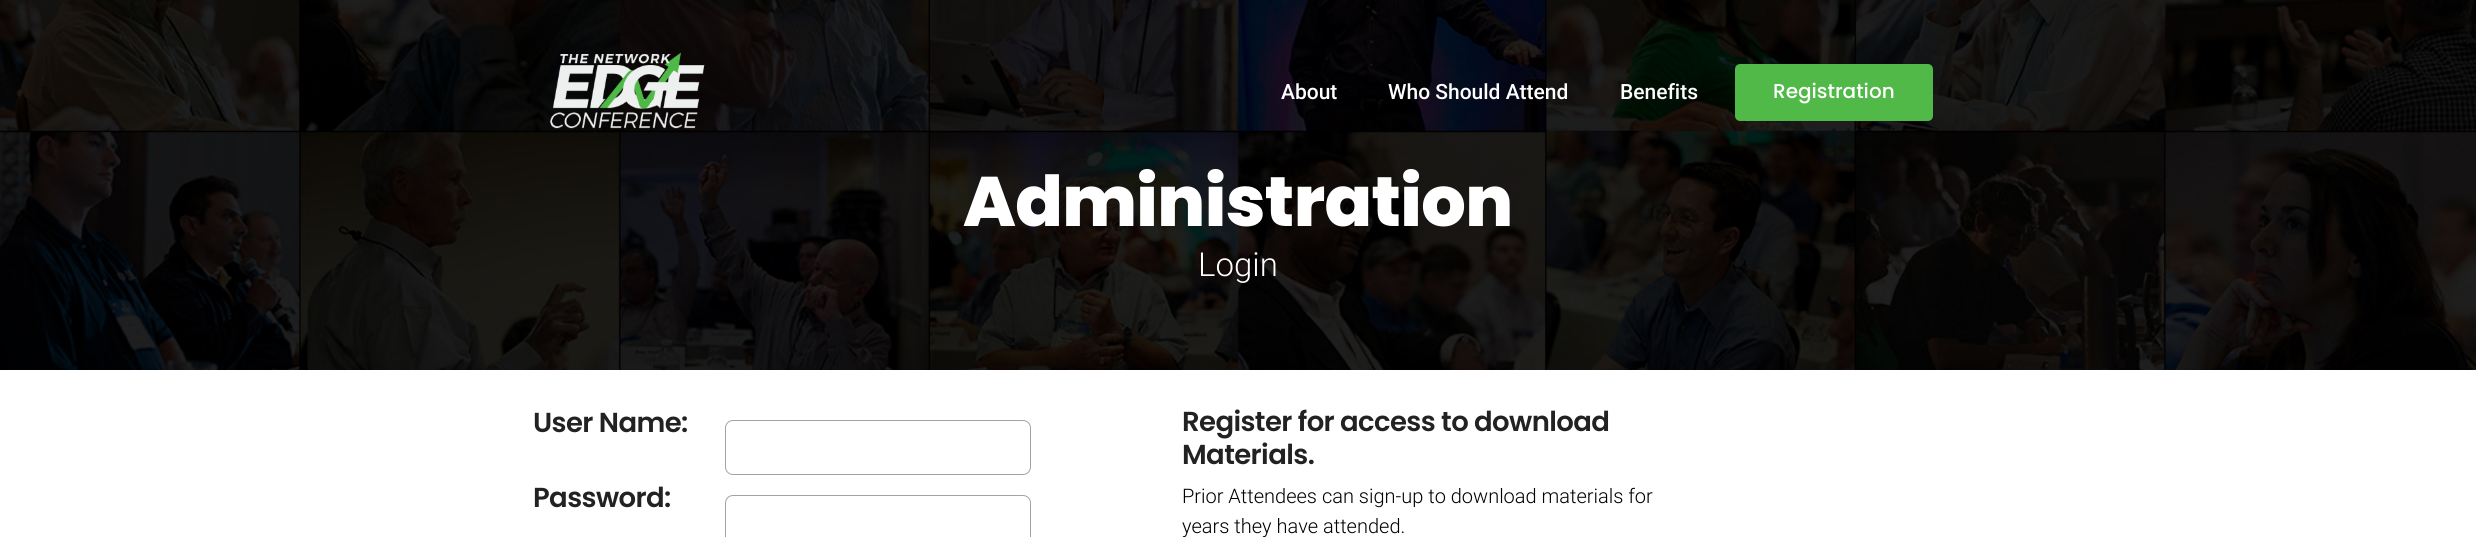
import math
import cairocffi as cairo

surface = cairo.ImageSurface(cairo.FORMAT_RGB24, 2476, 537)
cr = cairo.Context(surface)
options = cairo.FontOptions()
options.set_hint_metrics(cairo.HINT_METRICS_OFF)
options.set_hint_style(cairo.HINT_STYLE_NONE)
cr.set_font_options(options)
cr.set_miter_limit(4)


def use_color(code):
    cr.set_source_rgb(*(v / 255 for v in bytes.fromhex(code[-6:])))


def spaced_text(x, y, s, letter, word):
    cr.move_to(x, y)
    for ch in s:
        cr.show_text(ch)
        cr.rel_move_to(letter + word * (ch == ' '), 0)


def round_rect(x, y, w, h, r):
    cr.new_sub_path()
    for i, (u, v) in enumerate([(x + w - r, y + h - r), (x + r, y + h - r), (x + r, y + r), (x + w - r, y + r)]):
        cr.arc(u, v, r, i * math.pi / 2, (i + 1) * math.pi / 2)
    cr.close_path()


def picture(path, x, y, w, h):
    cr.save()
    cr.set_source_surface(cairo.ImageSurface.create_from_png(path), x, y)
    cr.rectangle(x, y, w, h)
    cr.fill()
    cr.restore()


use_color("#ffffff")
cr.paint()
picture("img2.png", 0, 0, 2476, 370)
picture("img1.png", 550, 52, 155, 77)
cr.select_font_face("Roboto Medium")
cr.set_font_size(21)
use_color("#ffffff")
cr.move_to(1281, 99)
cr.show_text("About")
cr.move_to(1388, 99)
cr.show_text("Who Should Attend")
cr.move_to(1620, 99)
cr.show_text("Benefits")
use_color("#51b948")
round_rect(1736.5, 65.5, 195, 54, 3.5)
cr.fill_preserve()
cr.set_line_width(3)
cr.stroke()
cr.select_font_face("Poppins Medium")
cr.set_font_size(20)
use_color("#ffffff")
cr.move_to(1773, 98)
cr.show_text("Registration")
cr.select_font_face("Poppins ExtraBold")
cr.set_font_size(70)
spaced_text(963, 226, "Administration", -0.6, 0)
cr.select_font_face("Roboto Light")
cr.set_font_size(33)
cr.move_to(1198, 276)
cr.show_text("Login")
cr.select_font_face("Poppins SemiBold")
cr.set_font_size(27.5)
use_color("#222222")
spaced_text(533, 432, "User Name:", -0.6, 0)
round_rect(725.5, 420.5, 305, 54, 7.5)
use_color("#a3a3a3")
cr.set_line_width(1)
cr.stroke()
use_color("#222222")
spaced_text(533, 507, "Password:", -0.6, 0)
round_rect(725.5, 495.5, 305, 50, 7.5)
use_color("#a3a3a3")
cr.stroke()
use_color("#222222")
spaced_text(1182, 431, "Register for access to download", -0.6, 0)
spaced_text(1182, 464, "Materials.", -0.6, 0)
cr.select_font_face("Roboto Light")
cr.set_font_size(20)
use_color("#000000")
cr.move_to(1182, 503)
cr.show_text("Prior Attendees can sign-up to download materials for")
cr.move_to(1182, 533)
cr.show_text("years they have attended.")
surface.write_to_png("result.png")
